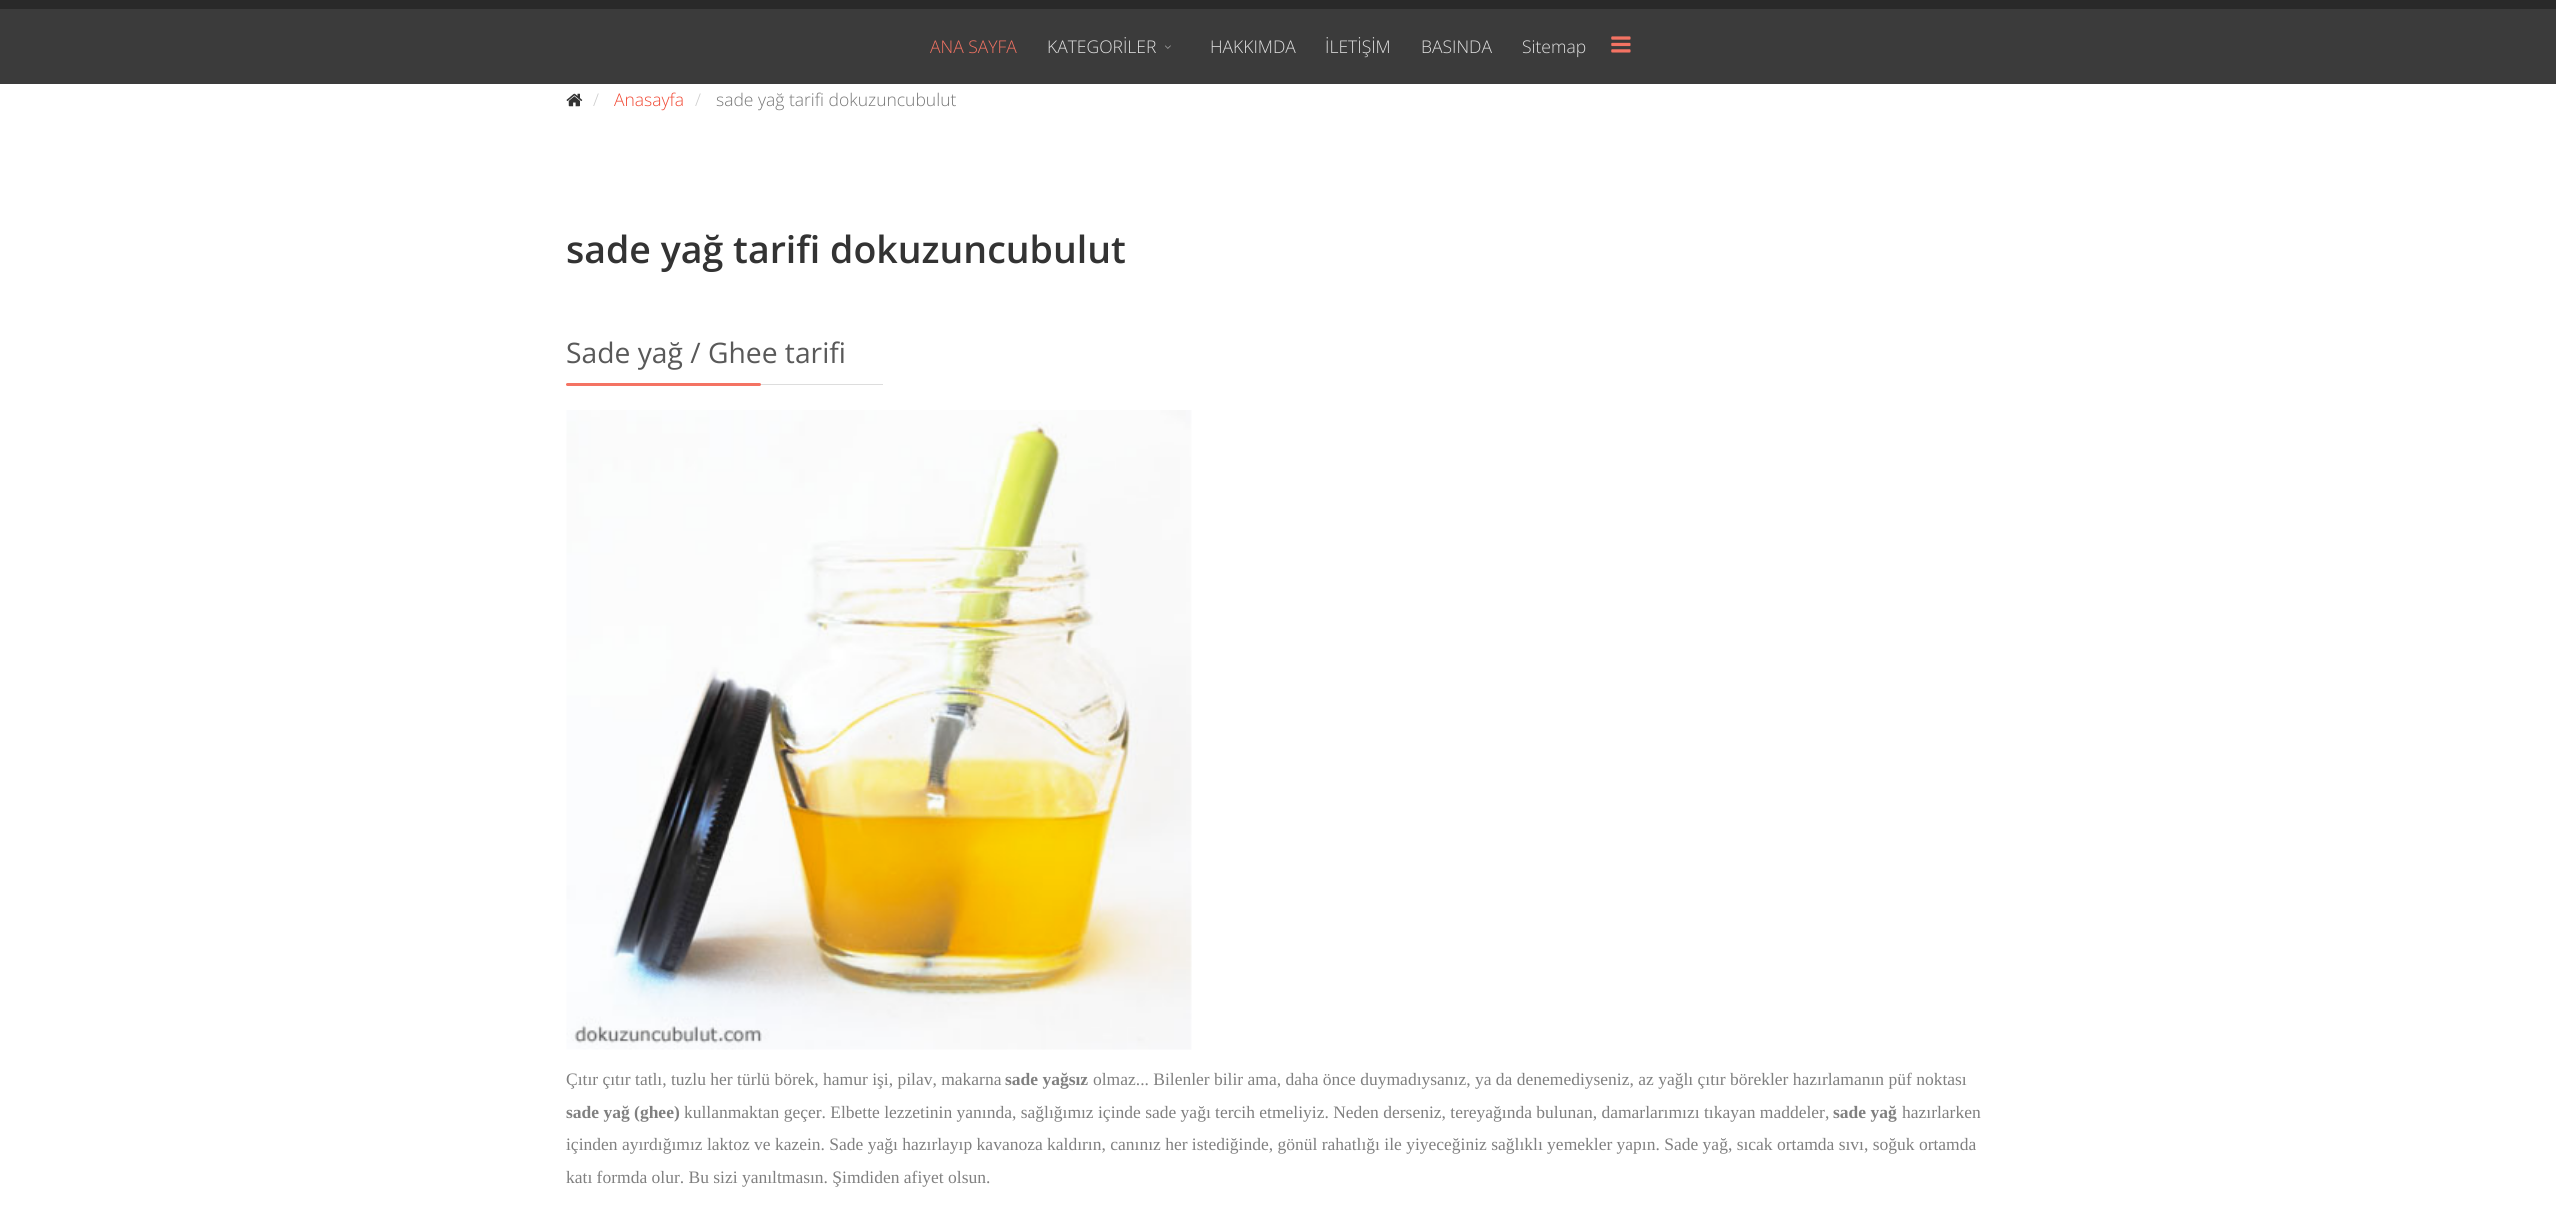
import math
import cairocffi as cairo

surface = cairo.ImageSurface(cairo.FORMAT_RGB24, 2556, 1231)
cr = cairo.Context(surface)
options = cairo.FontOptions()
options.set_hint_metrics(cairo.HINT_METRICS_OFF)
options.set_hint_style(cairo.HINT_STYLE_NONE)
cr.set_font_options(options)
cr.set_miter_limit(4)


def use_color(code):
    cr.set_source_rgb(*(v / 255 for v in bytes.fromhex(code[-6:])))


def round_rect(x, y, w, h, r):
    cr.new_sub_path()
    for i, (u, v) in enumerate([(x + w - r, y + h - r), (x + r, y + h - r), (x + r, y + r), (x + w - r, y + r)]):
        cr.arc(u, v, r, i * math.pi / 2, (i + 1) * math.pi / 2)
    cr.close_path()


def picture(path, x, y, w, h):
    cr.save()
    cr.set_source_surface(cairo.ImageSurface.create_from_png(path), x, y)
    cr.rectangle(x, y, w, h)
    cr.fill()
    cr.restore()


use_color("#ffffff")
cr.paint()
use_color("#292929")
cr.rectangle(0, 0, 2556, 9)
cr.fill()
use_color("#3b3b3b")
cr.rectangle(0, 9, 2556, 75)
cr.fill()
cr.select_font_face("Open Sans Light")
cr.set_font_size(17.5)
use_color("#f47363")
cr.move_to(930, 53)
cr.show_text("ANA SAYFA")
use_color("#e0e0e0")
cr.move_to(1047, 53)
cr.show_text("KATEGORİLER")
picture("img1.png", 1165, 45, 6, 4)
cr.move_to(1210, 53)
cr.show_text("HAKKIMDA")
cr.move_to(1325, 53)
cr.show_text("İLETİŞİM")
cr.move_to(1421, 53)
cr.show_text("BASINDA")
cr.move_to(1522, 53)
cr.show_text("Sitemap")
picture("img2.png", 1611, 36, 20, 17)
picture("img3.png", 566, 93, 17, 14)
use_color("#cccccc")
cr.move_to(593, 106)
cr.show_text("/")
use_color("#f14833")
cr.move_to(614, 106)
cr.show_text("Anasayfa")
use_color("#cccccc")
cr.move_to(695, 106)
cr.show_text("/")
use_color("#777777")
cr.move_to(716, 106)
cr.show_text("sade yağ tarifi dokuzuncubulut")
cr.select_font_face("Open Sans SemiBold")
cr.set_font_size(37.5)
use_color("#333333")
cr.move_to(566, 263)
cr.show_text("sade yağ tarifi dokuzuncubulut")
use_color("#dddddd")
cr.rectangle(566, 384, 317, 1)
cr.fill()
cr.select_font_face("Open Sans")
cr.set_font_size(28.25)
use_color("#595959")
cr.move_to(566, 363)
cr.show_text("Sade yağ / Ghee tarifi")
use_color("#f47363")
round_rect(566, 383, 195, 3, 1.5)
cr.fill()
picture("img4.png", 566, 410, 626, 640)
cr.select_font_face("Liberation Serif")
cr.set_font_size(17.5)
use_color("#808080")
cr.move_to(566, 1085)
cr.show_text("Çıtır çıtır tatlı, tuzlu her türlü börek, hamur işi, pilav, makarna")
cr.select_font_face("Liberation Serif", cairo.FONT_SLANT_NORMAL, cairo.FONT_WEIGHT_BOLD)
cr.move_to(1005, 1085)
cr.show_text("sade yağsız")
cr.select_font_face("Liberation Serif")
cr.move_to(1093, 1085)
cr.show_text("olmaz... Bilenler bilir ama, daha önce duymadıysanız, ya da denemediyseniz, az yağlı çıtır börekler hazırlamanın püf noktası")
cr.select_font_face("Liberation Serif", cairo.FONT_SLANT_NORMAL, cairo.FONT_WEIGHT_BOLD)
cr.move_to(566, 1118)
cr.show_text("sade yağ (ghee)")
cr.select_font_face("Liberation Serif")
cr.move_to(684, 1118)
cr.show_text("kullanmaktan geçer. Elbette lezzetinin yanında, sağlığımız içinde sade yağı tercih etmeliyiz. Neden derseniz, tereyağında bulunan, damarlarımızı tıkayan maddeler,")
cr.select_font_face("Liberation Serif", cairo.FONT_SLANT_NORMAL, cairo.FONT_WEIGHT_BOLD)
cr.move_to(1833, 1118)
cr.show_text("sade yağ")
cr.select_font_face("Liberation Serif")
cr.move_to(1902, 1118)
cr.show_text("hazırlarken")
cr.move_to(566, 1150)
cr.show_text("içinden ayırdığımız laktoz ve kazein. Sade yağı hazırlayıp kavanoza kaldırın, canınız her istediğinde, gönül rahatlığı ile yiyeceğiniz sağlıklı yemekler yapın. Sade yağ, sıcak ortamda sıvı, soğuk ortamda")
cr.move_to(566, 1183)
cr.show_text("katı formda olur. Bu sizi yanıltmasın. Şimdiden afiyet olsun.")
surface.write_to_png("result.png")
